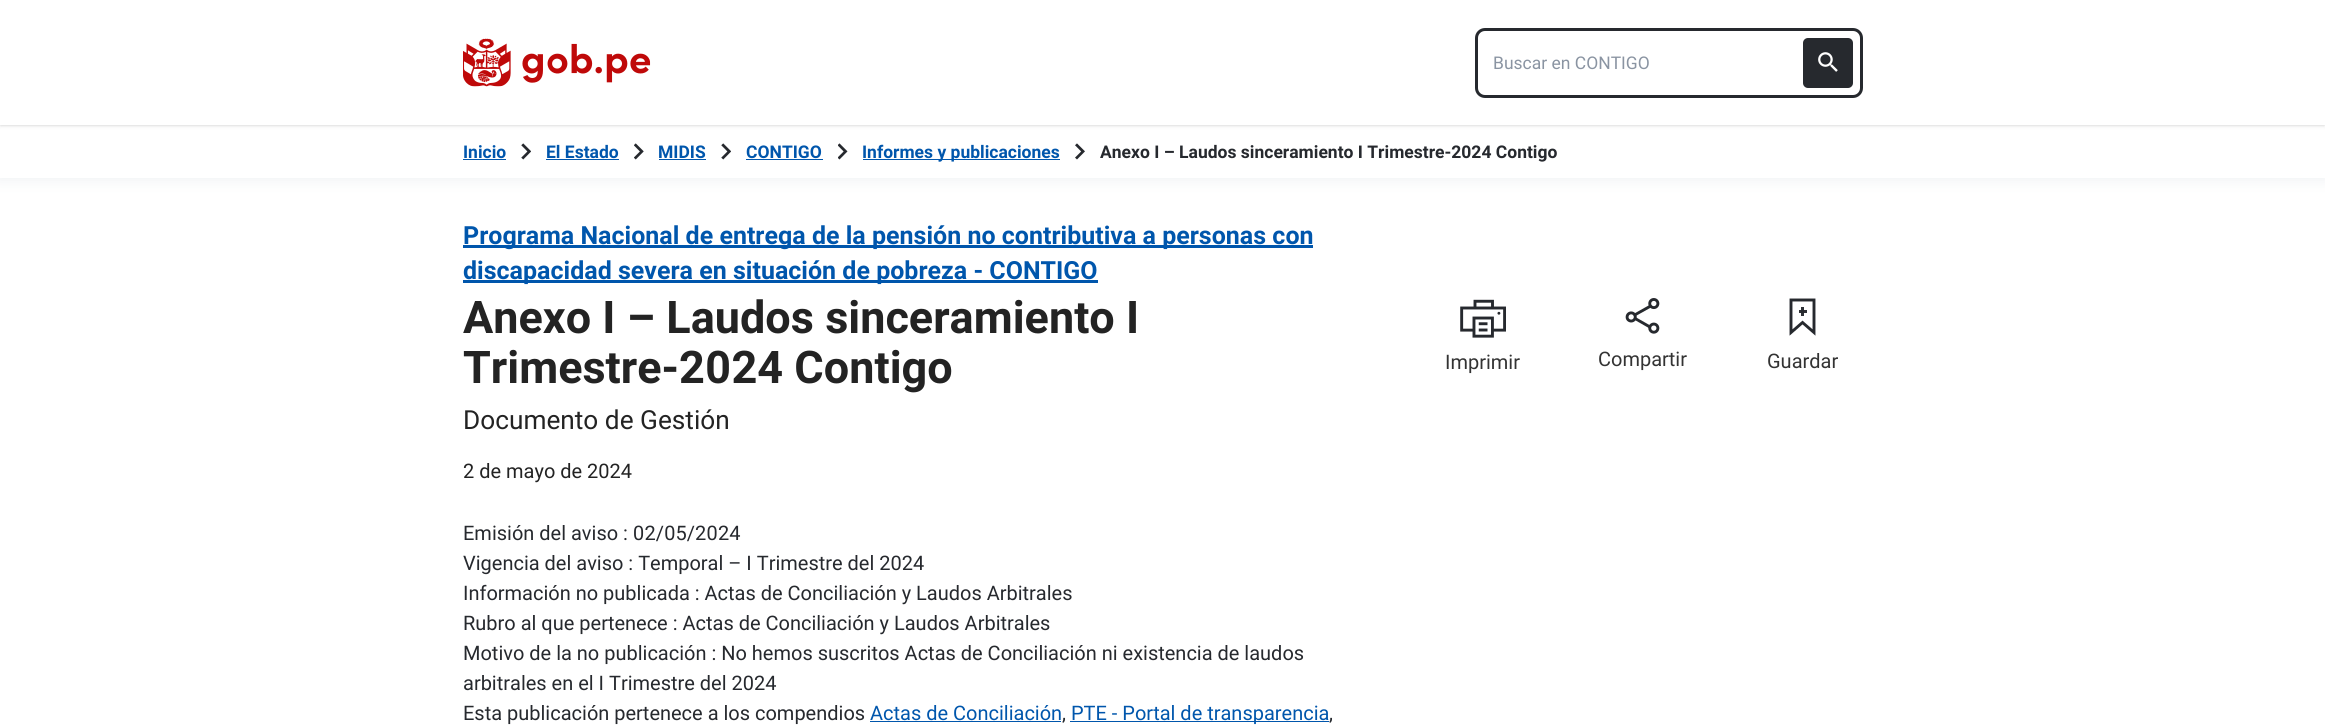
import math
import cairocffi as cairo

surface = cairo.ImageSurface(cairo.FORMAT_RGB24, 2325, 725)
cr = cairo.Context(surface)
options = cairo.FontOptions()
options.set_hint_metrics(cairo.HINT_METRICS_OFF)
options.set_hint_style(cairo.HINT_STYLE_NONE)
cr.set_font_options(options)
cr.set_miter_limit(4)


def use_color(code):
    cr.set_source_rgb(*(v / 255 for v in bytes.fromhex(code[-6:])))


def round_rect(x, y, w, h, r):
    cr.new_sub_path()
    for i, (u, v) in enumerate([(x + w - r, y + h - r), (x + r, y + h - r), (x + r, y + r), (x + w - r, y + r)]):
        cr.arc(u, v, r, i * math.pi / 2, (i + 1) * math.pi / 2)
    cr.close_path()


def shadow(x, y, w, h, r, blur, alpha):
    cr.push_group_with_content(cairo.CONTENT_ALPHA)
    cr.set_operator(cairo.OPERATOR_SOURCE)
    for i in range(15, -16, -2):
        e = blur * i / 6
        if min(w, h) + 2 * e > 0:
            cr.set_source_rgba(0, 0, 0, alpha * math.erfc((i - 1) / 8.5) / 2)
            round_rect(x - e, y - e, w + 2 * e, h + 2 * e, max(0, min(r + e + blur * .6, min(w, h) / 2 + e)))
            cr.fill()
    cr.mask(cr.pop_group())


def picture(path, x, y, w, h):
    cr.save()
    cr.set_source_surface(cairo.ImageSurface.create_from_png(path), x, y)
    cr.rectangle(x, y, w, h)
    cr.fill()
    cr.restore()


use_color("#ffffff")
cr.paint()
use_color("#2d2f34")
cr.rectangle(1799, 310, 8, 3)
cr.fill()
use_color("#bec7d3")
shadow(-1, 125, 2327, 55, 0, 7, 0.25)
use_color("#ffffff")
cr.rectangle(0, 125, 2325, 53)
cr.fill()
use_color("#000000")
shadow(1, 3, 2323, 122, 0, 1, 0.1)
shadow(0, 1, 2325, 125, 0, 2, 0.1)
use_color("#ffffff")
cr.rectangle(0, 0, 2325, 125)
cr.fill()
picture("img1.png", 463, 38, 188, 49)
round_rect(1476.5, 29.5, 385, 67, 8.5)
use_color("#26292e")
cr.set_line_width(3)
cr.stroke()
cr.select_font_face("Roboto")
cr.set_font_size(17.5)
use_color("#8a94a2")
cr.move_to(1493, 69)
cr.show_text("Buscar en CONTIGO")
use_color("#26292e")
round_rect(1803, 38, 50, 50, 5)
cr.fill()
picture("img2.png", 1818, 52, 20, 20)
cr.select_font_face("Roboto", cairo.FONT_SLANT_NORMAL, cairo.FONT_WEIGHT_BOLD)
use_color("#0056ac")
cr.move_to(463, 158)
cr.show_text("Inicio")
cr.rectangle(463, 159, 43, 1)
cr.fill()
picture("img3.png", 521, 143, 10, 17)
cr.move_to(546, 158)
cr.show_text("El Estado")
cr.rectangle(546, 159, 73, 1)
cr.fill()
picture("img4.png", 634, 143, 10, 17)
cr.move_to(658, 158)
cr.show_text("MIDIS")
cr.rectangle(659, 159, 47, 1)
cr.fill()
picture("img3.png", 721, 143, 10, 17)
cr.move_to(746, 158)
cr.show_text("CONTIGO")
cr.rectangle(746, 159, 77, 1)
cr.fill()
picture("img5.png", 838, 143, 10, 17)
cr.rectangle(863, 159, 197, 1)
cr.fill()
cr.move_to(862, 158)
cr.show_text("Informes y publicaciones")
picture("img6.png", 1075, 143, 10, 17)
use_color("#26292e")
cr.move_to(1100, 158)
cr.show_text("Anexo I – Laudos sinceramiento I Trimestre-2024 Contigo")
use_color("#0056ac")
cr.rectangle(463, 245, 850, 3)
cr.fill()
cr.set_font_size(25)
cr.move_to(463, 244)
cr.show_text("Programa Nacional de entrega de la pensión no contributiva a personas con")
cr.rectangle(463, 280, 635, 3)
cr.fill()
cr.move_to(463, 279)
cr.show_text("discapacidad severa en situación de pobreza - CONTIGO")
cr.set_font_size(45)
use_color("#232323")
cr.move_to(463, 333)
cr.show_text("Anexo I – Laudos sinceramiento I")
cr.select_font_face("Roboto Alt", cairo.FONT_SLANT_NORMAL, cairo.FONT_WEIGHT_BOLD)
cr.move_to(463, 383)
cr.show_text("Trimestre-2024 Contigo")
cr.select_font_face("Roboto")
cr.set_font_size(26.25)
cr.move_to(463, 429)
cr.show_text("Documento de Gestión")
cr.set_font_size(20)
cr.move_to(463, 478)
cr.show_text("2 de mayo de 2024")
cr.select_font_face("Roboto Alt")
use_color("#26292e")
cr.move_to(463, 540)
cr.show_text("Emisión del aviso : 02/05/2024")
cr.select_font_face("Roboto")
cr.move_to(463, 570)
cr.show_text("Vigencia del aviso : Temporal – I Trimestre del 2024")
cr.move_to(463, 600)
cr.show_text("Información no publicada : Actas de Conciliación y Laudos Arbitrales")
cr.move_to(463, 630)
cr.show_text("Rubro al que pertenece : Actas de Conciliación y Laudos Arbitrales")
cr.move_to(463, 660)
cr.show_text("Motivo de la no publicación : No hemos suscritos Actas de Conciliación ni existencia de laudos")
cr.move_to(463, 690)
cr.show_text("arbitrales en el I Trimestre del 2024")
cr.move_to(463, 720)
cr.show_text("Esta publicación pertenece a los compendios")
use_color("#0056ac")
cr.move_to(870, 720)
cr.show_text("Actas de Conciliación")
cr.rectangle(870, 721, 191, 1)
cr.fill()
use_color("#26292e")
cr.move_to(1062, 720)
cr.show_text(",")
use_color("#0056ac")
cr.rectangle(1070, 721, 259, 1)
cr.fill()
cr.move_to(1071, 720)
cr.show_text("PTE - Portal de transparencia")
use_color("#26292e")
cr.move_to(1329, 720)
cr.show_text(",")
picture("img7.png", 1460, 299, 46, 39)
use_color("#333333")
cr.move_to(1445, 369)
cr.show_text("Imprimir")
picture("img8.png", 1625, 298, 35, 36)
cr.move_to(1598, 366)
cr.show_text("Compartir")
cr.new_path()
cr.move_to(1814, 332.5)
cr.line_to(1802.5, 322.5)
cr.line_to(1791, 332.5)
cr.line_to(1791, 300)
cr.line_to(1814, 300)
cr.close_path()
use_color("#26292e")
cr.set_line_width(2.9)
cr.stroke()
use_color("#2d3035")
cr.rectangle(1801, 307, 3, 9)
cr.fill()
use_color("#26292e")
cr.rectangle(1801, 310, 3, 3)
cr.fill()
use_color("#333333")
cr.move_to(1767, 368)
cr.show_text("Guardar")
surface.write_to_png("result.png")
